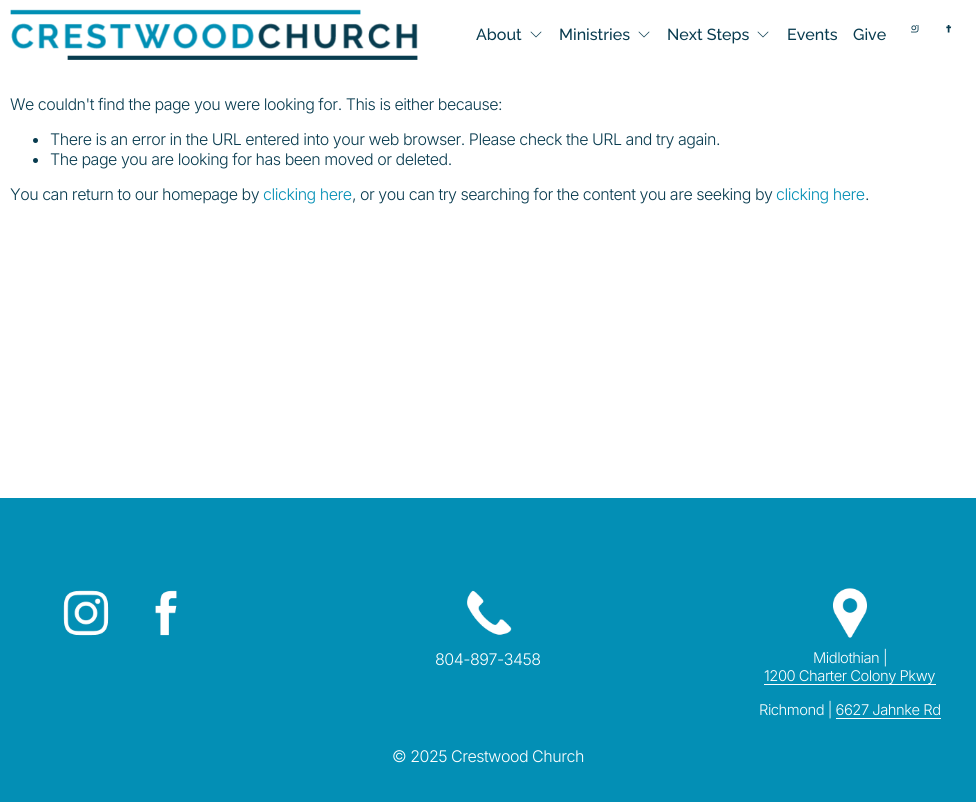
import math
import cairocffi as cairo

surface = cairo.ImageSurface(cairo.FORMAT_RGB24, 976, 802)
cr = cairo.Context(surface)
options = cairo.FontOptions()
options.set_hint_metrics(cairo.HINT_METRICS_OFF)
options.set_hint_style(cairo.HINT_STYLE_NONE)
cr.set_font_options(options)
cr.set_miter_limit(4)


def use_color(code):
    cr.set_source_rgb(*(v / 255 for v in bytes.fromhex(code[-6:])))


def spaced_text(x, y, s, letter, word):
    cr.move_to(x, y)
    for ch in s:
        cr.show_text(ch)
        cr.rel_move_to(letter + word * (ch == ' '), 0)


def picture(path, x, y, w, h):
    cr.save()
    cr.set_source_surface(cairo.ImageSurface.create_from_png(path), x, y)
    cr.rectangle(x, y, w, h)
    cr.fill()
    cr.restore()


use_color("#ffffff")
cr.paint()
picture("img1.png", 10, 9, 408, 51)
cr.select_font_face("Raleway Medium")
cr.set_font_size(16)
use_color("#083b4f")
cr.move_to(476, 40)
cr.show_text("About")
cr.new_path()
cr.move_to(541, 32)
cr.line_to(536, 37)
cr.line_to(531, 32)
cr.set_line_width(0.7)
cr.set_line_cap(cairo.LINE_CAP_SQUARE)
cr.stroke()
cr.move_to(559, 40)
cr.show_text("Ministries")
cr.new_path()
cr.move_to(649, 32)
cr.line_to(644, 37)
cr.line_to(639, 32)
cr.stroke()
cr.move_to(667, 40)
cr.show_text("Next Steps")
cr.new_path()
cr.move_to(768, 32)
cr.line_to(763, 37)
cr.line_to(758, 32)
cr.stroke()
cr.move_to(787, 40)
cr.show_text("Events")
cr.move_to(853, 40)
cr.show_text("Give")
picture("img2.png", 911, 25, 8, 8)
picture("img3.png", 946, 25, 6, 8)
cr.select_font_face("Inter Light")
spaced_text(10, 110, "We couldn't find the page you were looking for. This is either because:", -0.48, 0)
cr.new_path()
cr.arc(35.5, 140.5, 2.5, 0, 2 * math.pi)
cr.fill()
spaced_text(50, 145, "There is an error in the URL entered into your web browser. Please check the URL and try again.", -0.48, 0)
cr.new_path()
cr.arc(35.5, 160.5, 2.5, 0, 2 * math.pi)
cr.fill()
spaced_text(50, 165, "The page you are looking for has been moved or deleted.", -0.48, 0)
spaced_text(10, 200, "You can return to our homepage by", -0.48, 0)
use_color("#038fb5")
spaced_text(263, 200, "clicking here", -0.48, 0)
use_color("#083b4f")
spaced_text(352, 200, ", or you can try searching for the content you are seeking by", -0.48, 0)
use_color("#038fb5")
spaced_text(776, 200, "clicking here", -0.48, 0)
use_color("#083b4f")
spaced_text(865, 200, ".", -0.48, 0)
use_color("#038fb5")
cr.rectangle(0, 498, 976, 304)
cr.fill()
picture("img4.png", 63, 590, 46, 46)
picture("img5.png", 155, 590, 22, 46)
picture("img6.png", 467, 590, 45, 45)
picture("img7.png", 832, 588, 36, 50)
use_color("#ffffff")
spaced_text(435, 665, "804-897-3458", -0.48, 0)
cr.set_font_size(14.75)
spaced_text(813, 663, "Midlothian |", -0.48, 0)
cr.rectangle(764, 684, 172, 1)
cr.fill()
spaced_text(764, 681, "1200 Charter Colony Pkwy", -0.48, 0)
spaced_text(759, 715, "Richmond | 6627 Jahnke Rd", -0.48, 0)
cr.rectangle(836, 718, 105, 1)
cr.fill()
cr.set_font_size(16)
spaced_text(392, 762, "© 2025 Crestwood Church", -0.48, 0)
surface.write_to_png("result.png")
